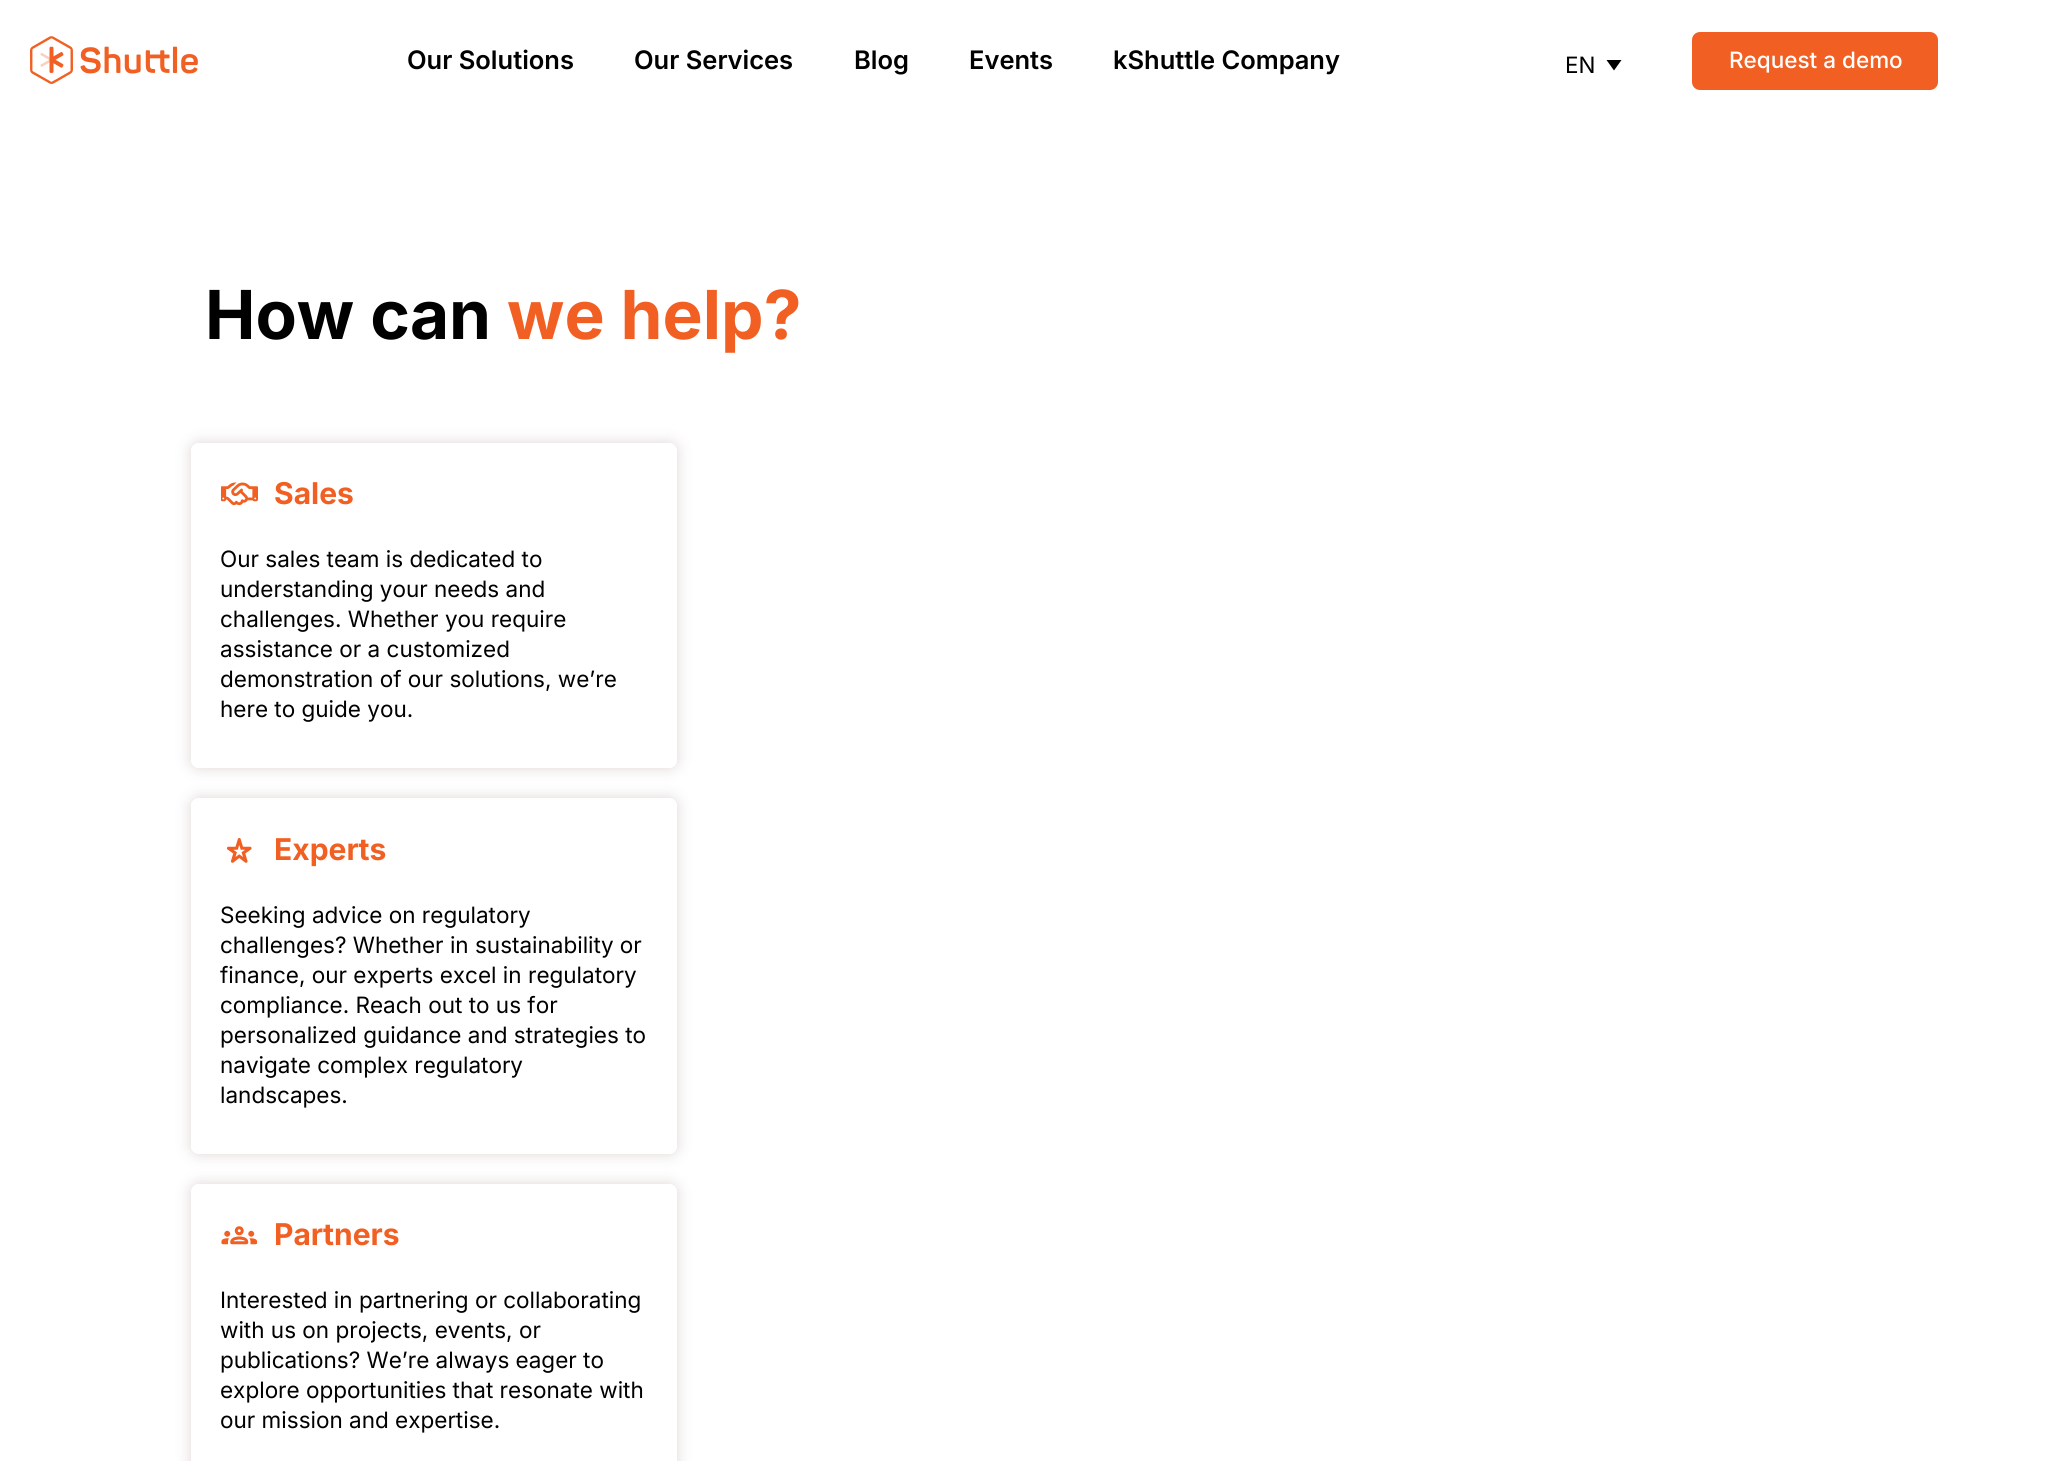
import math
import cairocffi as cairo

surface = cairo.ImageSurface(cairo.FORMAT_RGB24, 2059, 1461)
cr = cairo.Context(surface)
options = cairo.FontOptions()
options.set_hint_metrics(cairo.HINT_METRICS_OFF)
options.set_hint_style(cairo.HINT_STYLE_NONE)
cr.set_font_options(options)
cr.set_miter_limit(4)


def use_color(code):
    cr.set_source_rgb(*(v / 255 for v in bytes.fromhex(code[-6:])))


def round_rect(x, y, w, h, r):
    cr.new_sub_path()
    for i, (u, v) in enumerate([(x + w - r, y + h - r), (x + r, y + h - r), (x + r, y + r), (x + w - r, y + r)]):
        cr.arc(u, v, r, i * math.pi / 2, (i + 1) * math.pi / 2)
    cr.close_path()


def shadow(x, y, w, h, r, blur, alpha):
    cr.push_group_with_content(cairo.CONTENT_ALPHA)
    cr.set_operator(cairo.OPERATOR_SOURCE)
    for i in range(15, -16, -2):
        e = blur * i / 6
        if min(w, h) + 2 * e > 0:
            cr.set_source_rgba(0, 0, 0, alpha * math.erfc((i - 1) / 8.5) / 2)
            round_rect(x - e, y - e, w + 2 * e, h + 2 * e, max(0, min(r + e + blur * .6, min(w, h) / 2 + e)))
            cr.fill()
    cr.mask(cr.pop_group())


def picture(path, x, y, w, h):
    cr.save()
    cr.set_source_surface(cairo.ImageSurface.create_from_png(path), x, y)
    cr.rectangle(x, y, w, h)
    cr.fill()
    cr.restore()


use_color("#ffffff")
cr.paint()
picture("img1.png", 30, 36, 168, 48)
cr.select_font_face("Inter SemiBold")
cr.set_font_size(25.5)
use_color("#000000")
cr.move_to(407, 69)
cr.show_text("Our Solutions")
cr.move_to(634, 69)
cr.show_text("Our Services")
cr.move_to(854, 69)
cr.show_text("Blog")
cr.move_to(969, 69)
cr.show_text("Events")
cr.move_to(1113, 69)
cr.show_text("kShuttle Company")
cr.select_font_face("Inter")
cr.set_font_size(22.5)
cr.move_to(1565, 73)
cr.show_text("EN")
cr.new_path()
cr.move_to(1606.5, 60)
cr.line_to(1621.5, 60)
cr.line_to(1614, 70.5)
cr.close_path()
cr.fill()
use_color("#f15f22")
round_rect(1692, 32, 246, 58, 8)
cr.fill()
cr.select_font_face("Inter Medium")
use_color("#ffffff")
cr.move_to(1729, 68)
cr.show_text("Request a demo")
cr.select_font_face("Inter", cairo.FONT_SLANT_NORMAL, cairo.FONT_WEIGHT_BOLD)
cr.set_font_size(67.5)
use_color("#000000")
cr.move_to(205, 339)
cr.show_text("How can")
use_color("#f15f22")
cr.move_to(507, 339)
cr.show_text("we help?")
cr.save()
cr.set_fill_rule(cairo.FILL_RULE_EVEN_ODD)
cr.new_path()
cr.move_to(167, 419)
cr.line_to(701, 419)
cr.line_to(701, 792)
cr.line_to(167, 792)
cr.close_path()
cr.move_to(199, 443)
cr.line_to(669, 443)
cr.curve_to(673.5, 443, 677, 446.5, 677, 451)
cr.line_to(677, 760)
cr.curve_to(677, 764.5, 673.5, 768, 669, 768)
cr.line_to(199, 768)
cr.curve_to(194.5, 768, 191, 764.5, 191, 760)
cr.line_to(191, 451)
cr.curve_to(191, 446.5, 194.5, 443, 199, 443)
cr.close_path()
cr.clip()
use_color("#815d5d")
shadow(191, 443, 486, 325, 8, 7.5, 0.25)
cr.restore()
picture("img2.png", 221, 482, 37, 24)
cr.set_font_size(30)
cr.move_to(274, 504)
cr.show_text("Sales")
cr.select_font_face("Inter")
cr.set_font_size(22.5)
use_color("#000000")
cr.move_to(220, 567)
cr.show_text("Our sales team is dedicated to")
cr.move_to(220, 597)
cr.show_text("understanding your needs and")
cr.move_to(220, 627)
cr.show_text("challenges. Whether you require")
cr.move_to(220, 657)
cr.show_text("assistance or a customized")
cr.move_to(220, 687)
cr.show_text("demonstration of our solutions, we’re")
cr.move_to(220, 717)
cr.show_text("here to guide you.")
cr.save()
cr.set_fill_rule(cairo.FILL_RULE_EVEN_ODD)
cr.new_path()
cr.move_to(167, 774)
cr.line_to(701, 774)
cr.line_to(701, 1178)
cr.line_to(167, 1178)
cr.close_path()
cr.move_to(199, 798)
cr.line_to(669, 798)
cr.curve_to(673.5, 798, 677, 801.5, 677, 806)
cr.line_to(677, 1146)
cr.curve_to(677, 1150.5, 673.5, 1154, 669, 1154)
cr.line_to(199, 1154)
cr.curve_to(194.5, 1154, 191, 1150.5, 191, 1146)
cr.line_to(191, 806)
cr.curve_to(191, 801.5, 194.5, 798, 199, 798)
cr.close_path()
cr.clip()
use_color("#815d5d")
shadow(191, 798, 486, 356, 8, 7.5, 0.25)
cr.restore()
picture("img3.png", 226, 838, 26, 25)
cr.select_font_face("Inter", cairo.FONT_SLANT_NORMAL, cairo.FONT_WEIGHT_BOLD)
cr.set_font_size(30)
use_color("#f15f22")
cr.move_to(274, 860)
cr.show_text("Experts")
cr.select_font_face("Inter")
cr.set_font_size(22.5)
use_color("#000000")
cr.move_to(220, 923)
cr.show_text("Seeking advice on regulatory")
cr.move_to(220, 953)
cr.show_text("challenges? Whether in sustainability or")
cr.move_to(220, 983)
cr.show_text("finance, our experts excel in regulatory")
cr.move_to(220, 1013)
cr.show_text("compliance. Reach out to us for")
cr.move_to(220, 1043)
cr.show_text("personalized guidance and strategies to")
cr.move_to(220, 1073)
cr.show_text("navigate complex regulatory")
cr.move_to(220, 1103)
cr.show_text("landscapes.")
cr.save()
cr.set_fill_rule(cairo.FILL_RULE_EVEN_ODD)
cr.new_path()
cr.move_to(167, 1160)
cr.line_to(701, 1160)
cr.line_to(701, 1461)
cr.line_to(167, 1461)
cr.close_path()
cr.move_to(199, 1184)
cr.line_to(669, 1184)
cr.curve_to(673.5, 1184, 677, 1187.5, 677, 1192)
cr.line_to(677, 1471)
cr.curve_to(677, 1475.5, 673.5, 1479, 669, 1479)
cr.line_to(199, 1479)
cr.curve_to(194.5, 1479, 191, 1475.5, 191, 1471)
cr.line_to(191, 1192)
cr.curve_to(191, 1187.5, 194.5, 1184, 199, 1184)
cr.close_path()
cr.clip()
use_color("#815d5d")
shadow(191, 1184, 486, 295, 8, 7.5, 0.25)
cr.restore()
picture("img4.png", 221, 1226, 37, 19)
cr.select_font_face("Inter", cairo.FONT_SLANT_NORMAL, cairo.FONT_WEIGHT_BOLD)
cr.set_font_size(30)
use_color("#f15f22")
cr.move_to(274, 1245)
cr.show_text("Partners")
cr.select_font_face("Inter")
cr.set_font_size(22.5)
use_color("#000000")
cr.move_to(220, 1308)
cr.show_text("Interested in partnering or collaborating")
cr.move_to(220, 1338)
cr.show_text("with us on projects, events, or")
cr.move_to(220, 1368)
cr.show_text("publications? We’re always eager to")
cr.move_to(220, 1398)
cr.show_text("explore opportunities that resonate with")
cr.move_to(220, 1428)
cr.show_text("our mission and expertise.")
surface.write_to_png("result.png")
